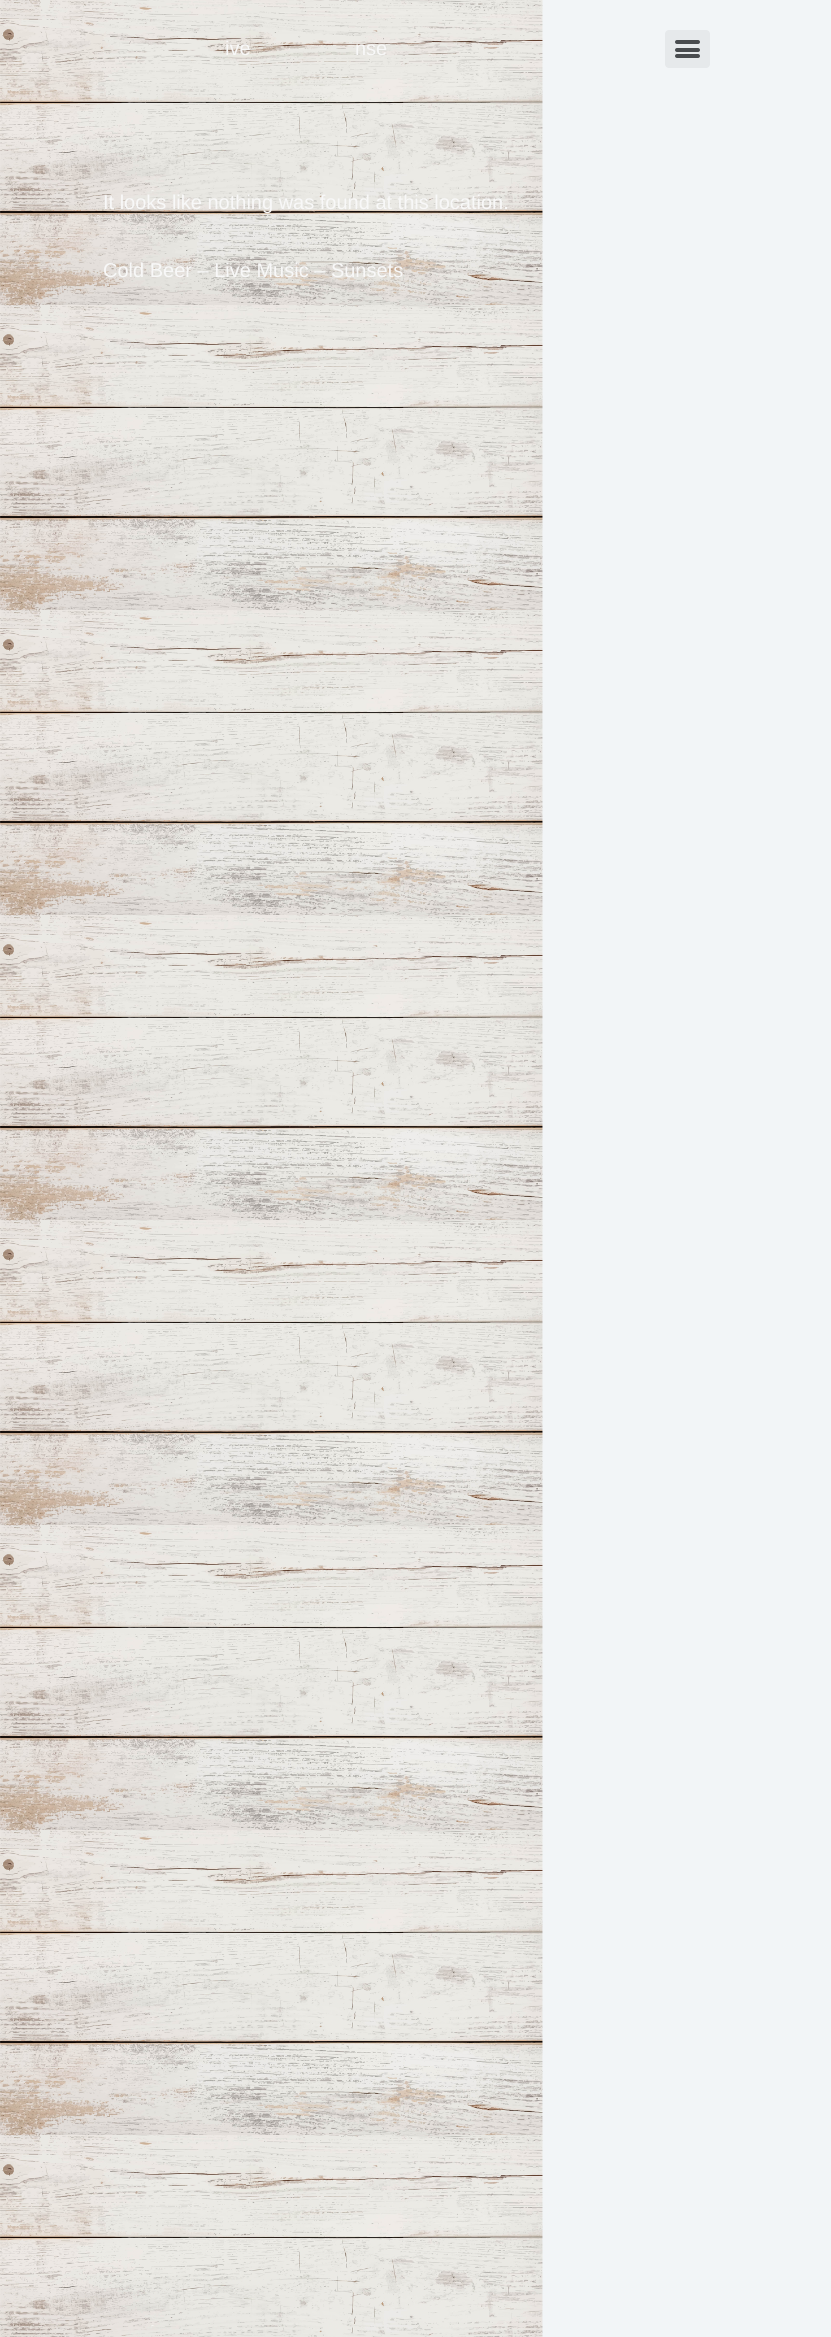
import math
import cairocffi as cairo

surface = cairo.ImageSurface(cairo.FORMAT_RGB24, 831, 2337)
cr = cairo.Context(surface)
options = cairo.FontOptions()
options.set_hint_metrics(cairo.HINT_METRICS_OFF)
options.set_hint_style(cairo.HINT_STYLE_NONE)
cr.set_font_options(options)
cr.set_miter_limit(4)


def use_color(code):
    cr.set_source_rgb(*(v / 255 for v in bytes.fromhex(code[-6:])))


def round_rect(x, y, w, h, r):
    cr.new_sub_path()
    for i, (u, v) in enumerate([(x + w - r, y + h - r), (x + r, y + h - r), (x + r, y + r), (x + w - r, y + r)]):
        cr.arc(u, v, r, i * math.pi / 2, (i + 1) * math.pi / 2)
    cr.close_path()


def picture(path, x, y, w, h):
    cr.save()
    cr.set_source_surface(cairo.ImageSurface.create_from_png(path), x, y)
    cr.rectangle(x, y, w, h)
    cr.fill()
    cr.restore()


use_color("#f2f5f7")
cr.paint()
picture("img1.png", 0, 0, 543, 2337)
cr.select_font_face("Liberation Sans")
cr.set_font_size(20)
use_color("#f8f8f8")
cr.move_to(225, 55)
cr.show_text("ive")
cr.move_to(355, 55)
cr.show_text("nse")
use_color("#e6e9eb")
round_rect(665, 30, 45, 38, 4)
cr.fill()
use_color("#494c4f")
round_rect(675, 48, 25, 4, 2)
cr.fill()
round_rect(675, 40, 25, 4, 2)
cr.fill()
round_rect(675, 54, 25, 4, 2)
cr.fill()
use_color("#f8f8f8")
cr.move_to(103, 209)
cr.show_text("It looks like nothing was found at this location.")
cr.move_to(103, 277)
cr.show_text("Cold Beer – Live Music – Sunsets")
surface.write_to_png("result.png")
